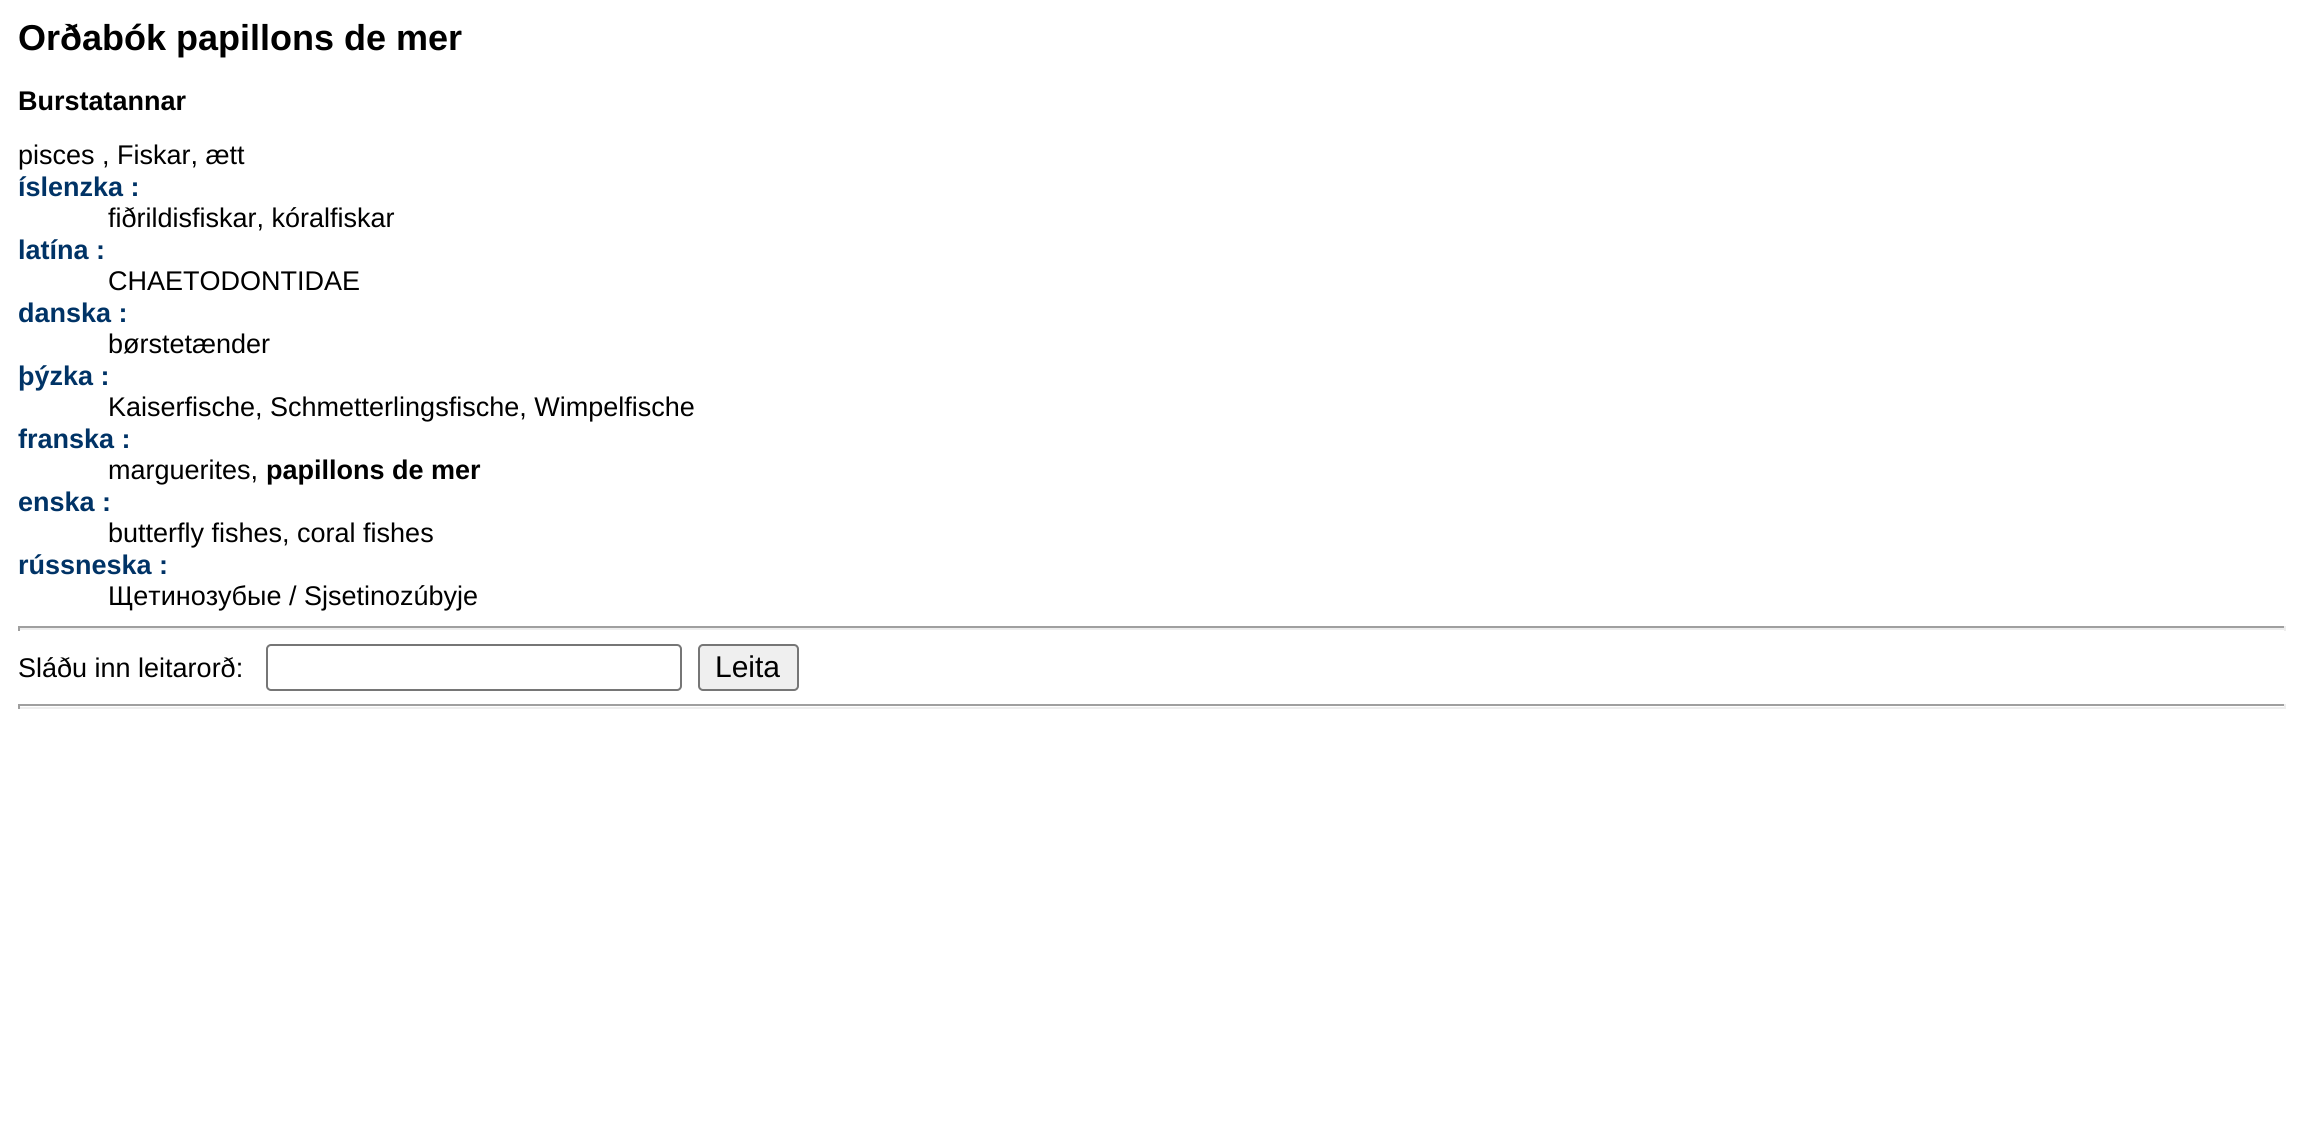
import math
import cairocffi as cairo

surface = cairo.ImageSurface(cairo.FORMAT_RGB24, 2303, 1133)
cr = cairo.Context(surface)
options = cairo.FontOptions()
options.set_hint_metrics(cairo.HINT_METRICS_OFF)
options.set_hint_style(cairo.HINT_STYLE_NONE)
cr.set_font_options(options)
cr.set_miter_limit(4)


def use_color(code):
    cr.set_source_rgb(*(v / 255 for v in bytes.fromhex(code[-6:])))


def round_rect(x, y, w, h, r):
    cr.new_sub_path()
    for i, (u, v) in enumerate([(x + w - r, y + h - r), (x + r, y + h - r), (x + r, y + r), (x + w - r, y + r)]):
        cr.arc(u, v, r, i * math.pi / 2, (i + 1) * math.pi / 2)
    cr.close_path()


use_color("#ffffff")
cr.paint()
cr.select_font_face("Liberation Sans", cairo.FONT_SLANT_NORMAL, cairo.FONT_WEIGHT_BOLD)
cr.set_font_size(36)
use_color("#000000")
cr.move_to(18, 50)
cr.show_text("Orðabók papillons de mer")
cr.set_font_size(27)
cr.move_to(18, 110)
cr.show_text("Burstatannar")
cr.select_font_face("Liberation Sans")
cr.move_to(18, 164)
cr.show_text("pisces , Fiskar, ætt")
cr.select_font_face("Liberation Sans", cairo.FONT_SLANT_NORMAL, cairo.FONT_WEIGHT_BOLD)
use_color("#003366")
cr.move_to(18, 196)
cr.show_text("íslenzka :")
cr.select_font_face("Liberation Sans")
use_color("#000000")
cr.move_to(108, 227)
cr.show_text("fiðrildisfiskar, kóralfiskar")
cr.select_font_face("Liberation Sans", cairo.FONT_SLANT_NORMAL, cairo.FONT_WEIGHT_BOLD)
use_color("#003366")
cr.move_to(18, 259)
cr.show_text("latína :")
cr.select_font_face("Liberation Sans")
use_color("#000000")
cr.move_to(108, 290)
cr.show_text("CHAETODONTIDAE")
cr.select_font_face("Liberation Sans", cairo.FONT_SLANT_NORMAL, cairo.FONT_WEIGHT_BOLD)
use_color("#003366")
cr.move_to(18, 322)
cr.show_text("danska :")
cr.select_font_face("Liberation Sans")
use_color("#000000")
cr.move_to(108, 353)
cr.show_text("børstetænder")
cr.select_font_face("Liberation Sans", cairo.FONT_SLANT_NORMAL, cairo.FONT_WEIGHT_BOLD)
use_color("#003366")
cr.move_to(18, 385)
cr.show_text("þýzka :")
cr.select_font_face("Liberation Sans")
use_color("#000000")
cr.move_to(108, 416)
cr.show_text("Kaiserfische, Schmetterlingsfische, Wimpelfische")
cr.select_font_face("Liberation Sans", cairo.FONT_SLANT_NORMAL, cairo.FONT_WEIGHT_BOLD)
use_color("#003366")
cr.move_to(18, 448)
cr.show_text("franska :")
cr.select_font_face("Liberation Sans")
use_color("#000000")
cr.move_to(108, 479)
cr.show_text("marguerites,")
cr.select_font_face("Liberation Sans", cairo.FONT_SLANT_NORMAL, cairo.FONT_WEIGHT_BOLD)
cr.move_to(266, 479)
cr.show_text("papillons de mer")
use_color("#003366")
cr.move_to(18, 511)
cr.show_text("enska :")
cr.select_font_face("Liberation Sans")
use_color("#000000")
cr.move_to(108, 542)
cr.show_text("butterfly fishes, coral fishes")
cr.select_font_face("Liberation Sans", cairo.FONT_SLANT_NORMAL, cairo.FONT_WEIGHT_BOLD)
use_color("#003366")
cr.move_to(18, 574)
cr.show_text("rússneska :")
cr.select_font_face("Liberation Sans")
use_color("#000000")
cr.move_to(108, 605)
cr.show_text("Щетинозубые / Sjsetinozúbyje")
use_color("#9f9f9f")
cr.rectangle(18, 626, 2268, 2)
cr.fill()
use_color("#eeeeee")
cr.rectangle(2284, 626, 2, 5)
cr.fill()
cr.rectangle(18, 628, 2268, 2)
cr.fill()
use_color("#9f9f9f")
cr.rectangle(18, 626, 2, 5)
cr.fill()
use_color("#000000")
cr.move_to(18, 677)
cr.show_text("Sláðu inn leitarorð:")
round_rect(267, 645, 414, 45, 4)
use_color("#767676")
cr.stroke()
use_color("#efefef")
round_rect(699, 645, 99, 45, 4)
cr.fill_preserve()
use_color("#767676")
cr.stroke()
cr.set_font_size(30)
use_color("#000000")
cr.move_to(715, 677)
cr.show_text("Leita")
use_color("#9f9f9f")
cr.rectangle(18, 704, 2268, 2)
cr.fill()
use_color("#eeeeee")
cr.rectangle(2284, 704, 2, 5)
cr.fill()
cr.rectangle(18, 707, 2268, 2)
cr.fill()
use_color("#9f9f9f")
cr.rectangle(18, 704, 2, 5)
cr.fill()
surface.write_to_png("result.png")
